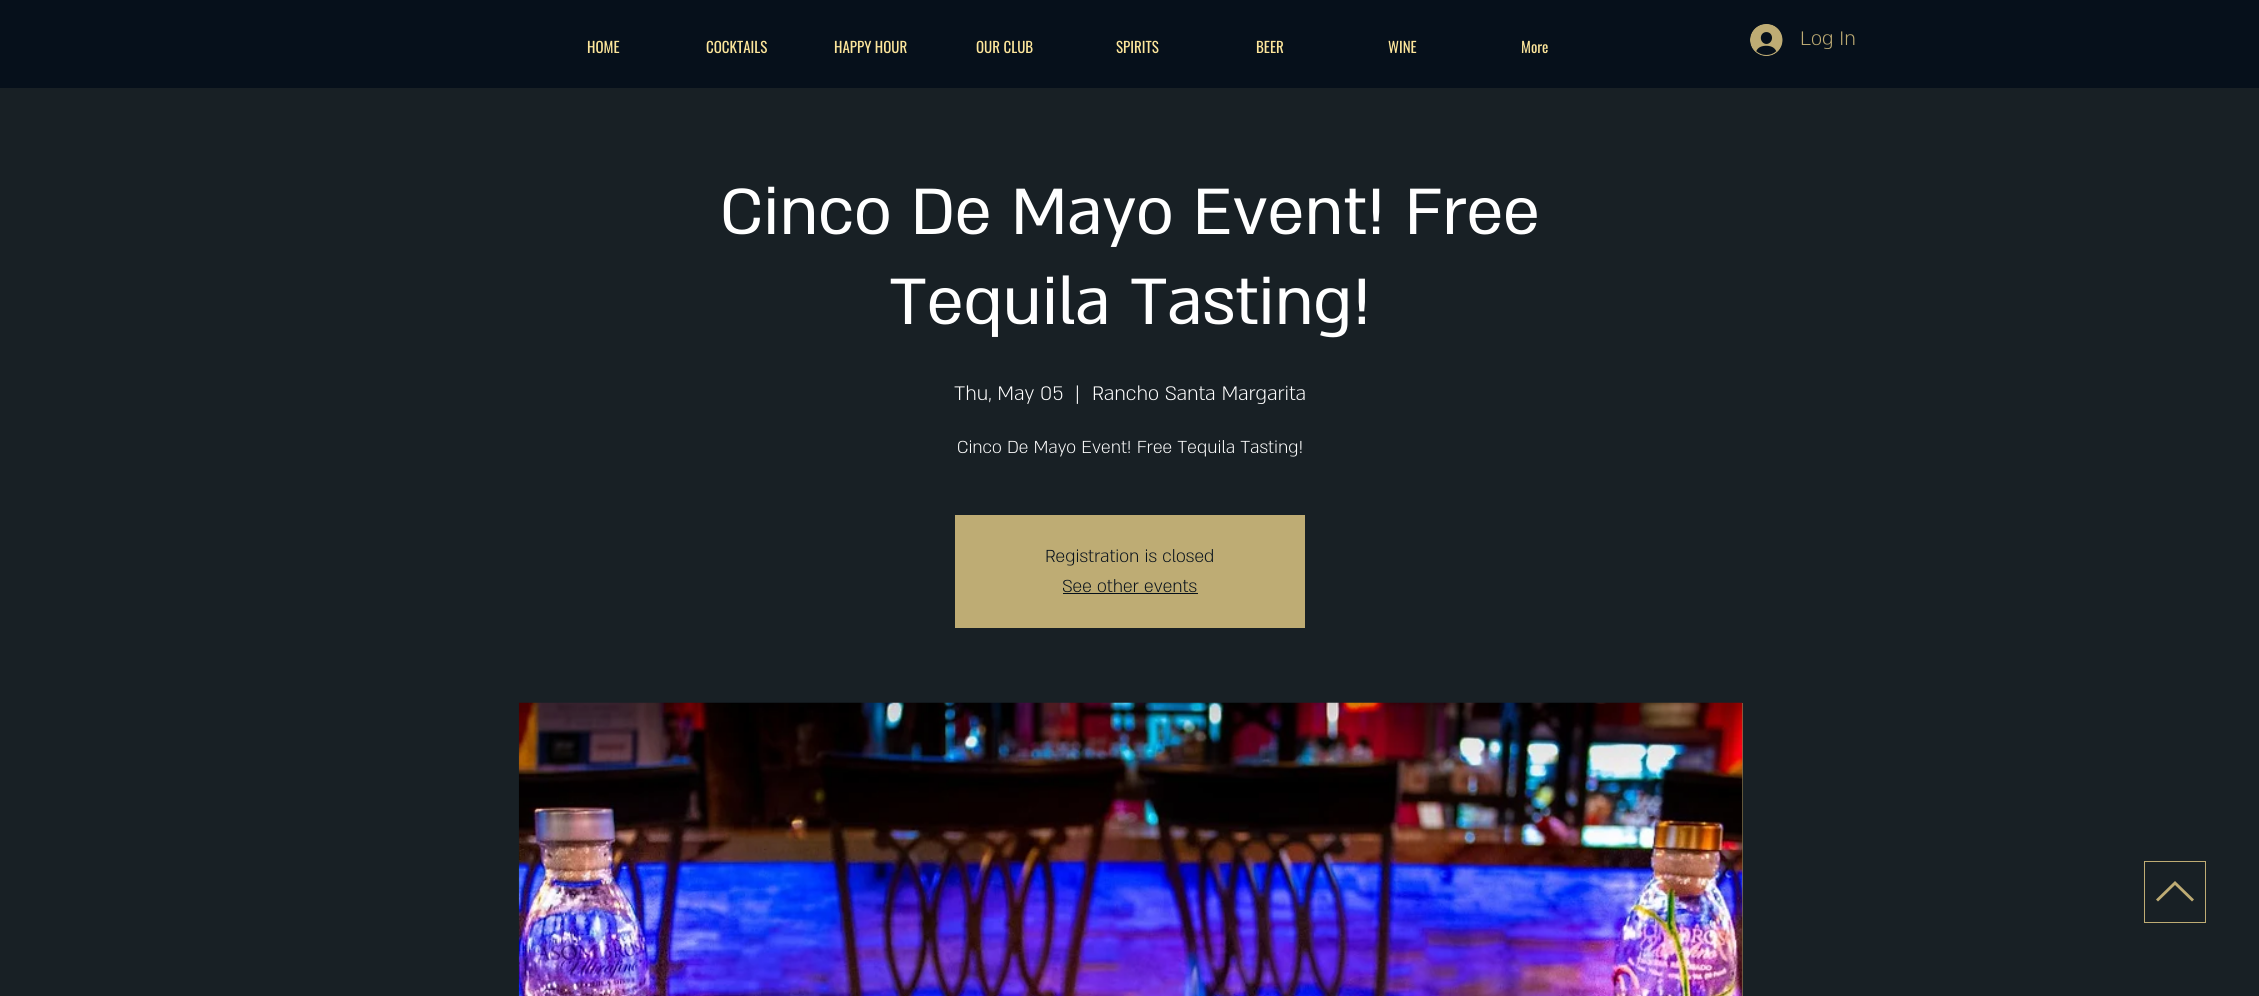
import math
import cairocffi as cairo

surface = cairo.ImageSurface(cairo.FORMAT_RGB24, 2259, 996)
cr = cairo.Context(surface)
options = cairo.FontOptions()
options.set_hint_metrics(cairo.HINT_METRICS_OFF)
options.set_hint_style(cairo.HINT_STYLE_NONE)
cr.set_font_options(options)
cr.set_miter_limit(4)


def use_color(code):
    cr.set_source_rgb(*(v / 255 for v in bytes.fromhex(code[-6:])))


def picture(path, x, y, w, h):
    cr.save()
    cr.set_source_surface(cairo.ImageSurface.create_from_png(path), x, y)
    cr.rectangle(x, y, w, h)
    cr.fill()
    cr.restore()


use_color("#06101b")
cr.paint()
cr.select_font_face("Oswald")
cr.set_font_size(15)
use_color("#fde69b")
cr.move_to(587, 53)
cr.show_text("HOME")
cr.move_to(706, 53)
cr.show_text("COCKTAILS")
cr.move_to(834, 53)
cr.show_text("HAPPY HOUR")
cr.move_to(976, 53)
cr.show_text("OUR CLUB")
cr.move_to(1116, 53)
cr.show_text("SPIRITS")
cr.move_to(1256, 53)
cr.show_text("BEER")
cr.move_to(1388, 53)
cr.show_text("WINE")
cr.move_to(1521, 53)
cr.show_text("More")
picture("img1.png", 1750, 24, 33, 32)
cr.select_font_face("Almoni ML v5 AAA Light")
cr.set_font_size(22.5)
use_color("#beac74")
cr.move_to(1800, 45)
cr.show_text("Log In")
use_color("#182025")
cr.rectangle(0, 88, 2259, 908)
cr.fill()
cr.select_font_face("Almoni ML v5 AAA")
cr.set_font_size(75)
use_color("#ffffff")
cr.move_to(720, 234)
cr.show_text("Cinco De Mayo Event! Free")
cr.move_to(889, 324)
cr.show_text("Tequila Tasting!")
cr.select_font_face("Almoni ML v5 AAA Light")
cr.set_font_size(22.5)
cr.move_to(954, 400)
cr.show_text("Thu, May 05")
cr.move_to(1075, 400)
cr.show_text("|")
cr.move_to(1092, 400)
cr.show_text("Rancho Santa Margarita")
cr.set_font_size(20)
cr.move_to(957, 453)
cr.show_text("Cinco De Mayo Event! Free Tequila Tasting!")
use_color("#beac74")
cr.rectangle(955, 515, 350, 113)
cr.fill()
use_color("#06101b")
cr.move_to(1045, 562)
cr.show_text("Registration is closed")
cr.move_to(1062, 592)
cr.show_text("See other events")
cr.rectangle(1063, 593, 135, 1)
cr.fill()
use_color("#7f734e")
cr.rectangle(1742, 703, 1, 293)
cr.fill()
picture("img2.png", 518, 702, 1225, 294)
cr.rectangle(2144.5, 861.5, 61, 61)
use_color("#beac74")
cr.set_line_width(1)
cr.stroke()
cr.new_path()
cr.move_to(2156, 899.5)
cr.line_to(2158, 901.5)
cr.line_to(2175, 885)
cr.line_to(2192, 901.5)
cr.line_to(2194, 899.5)
cr.line_to(2175, 881)
cr.close_path()
cr.fill()
surface.write_to_png("result.png")
